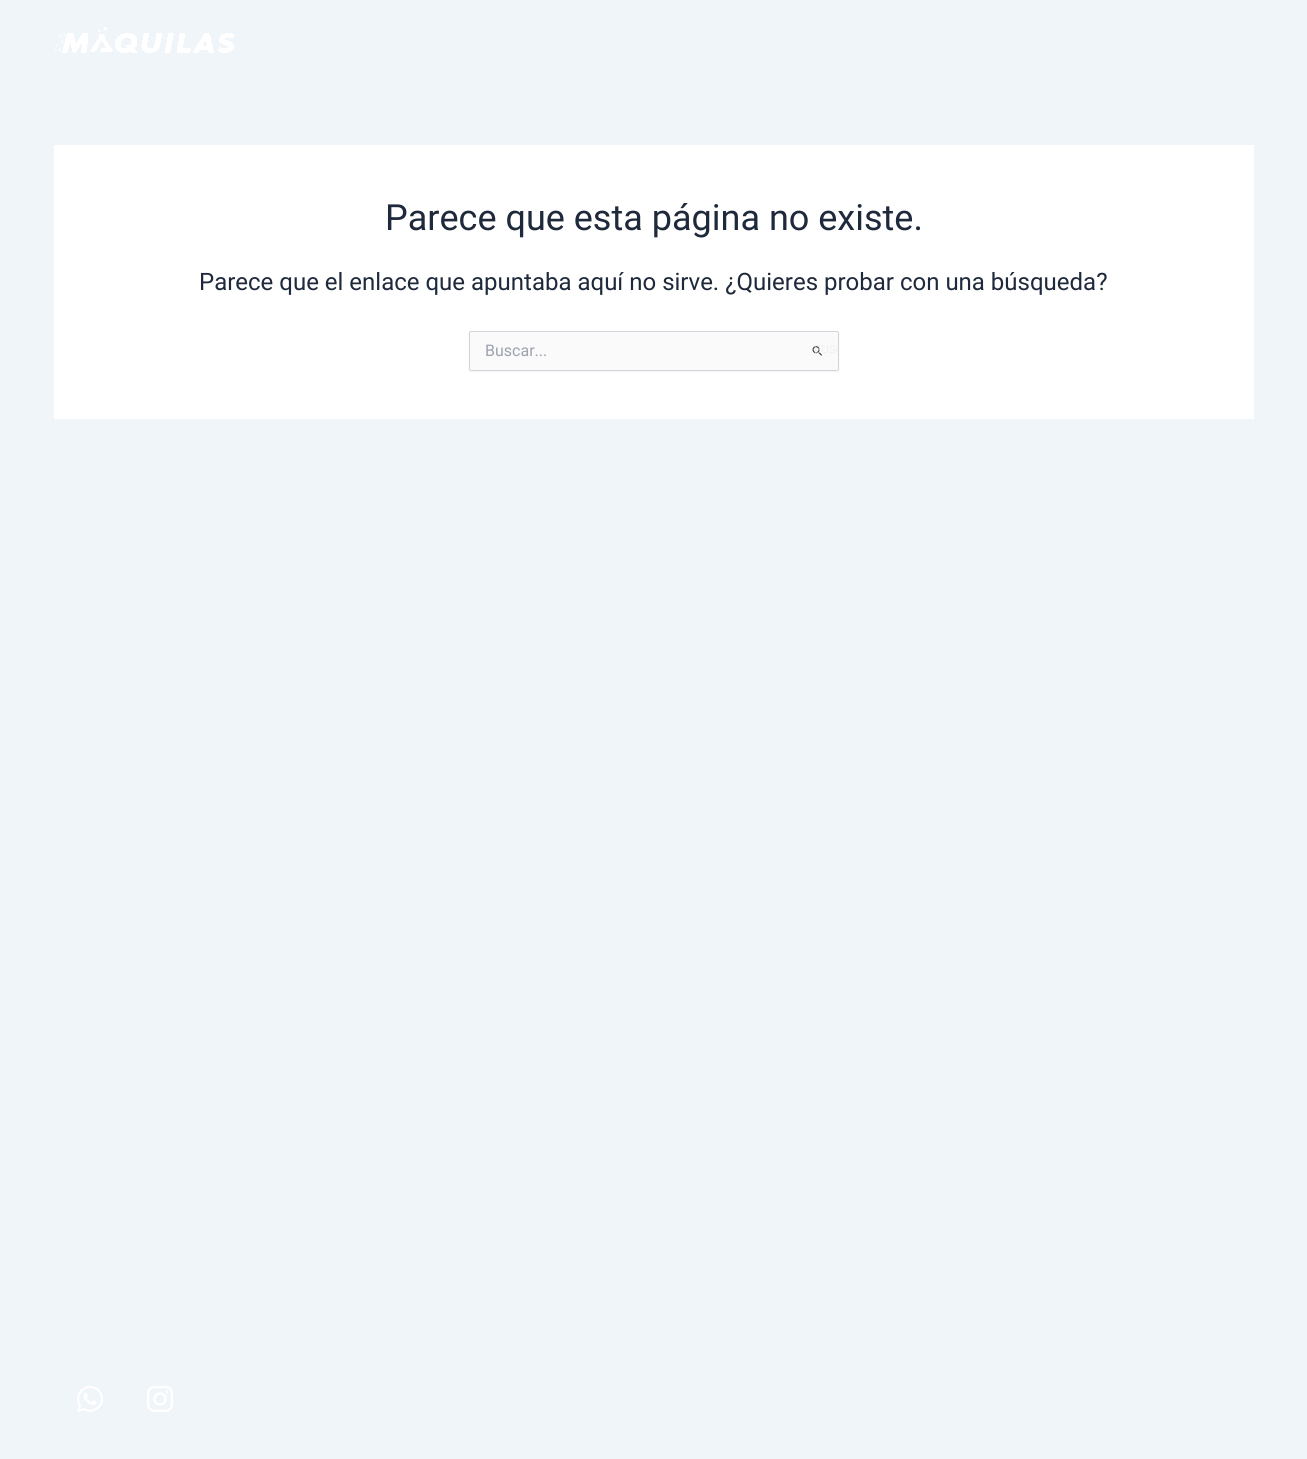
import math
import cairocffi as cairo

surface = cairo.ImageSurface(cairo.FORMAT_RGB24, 1307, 1459)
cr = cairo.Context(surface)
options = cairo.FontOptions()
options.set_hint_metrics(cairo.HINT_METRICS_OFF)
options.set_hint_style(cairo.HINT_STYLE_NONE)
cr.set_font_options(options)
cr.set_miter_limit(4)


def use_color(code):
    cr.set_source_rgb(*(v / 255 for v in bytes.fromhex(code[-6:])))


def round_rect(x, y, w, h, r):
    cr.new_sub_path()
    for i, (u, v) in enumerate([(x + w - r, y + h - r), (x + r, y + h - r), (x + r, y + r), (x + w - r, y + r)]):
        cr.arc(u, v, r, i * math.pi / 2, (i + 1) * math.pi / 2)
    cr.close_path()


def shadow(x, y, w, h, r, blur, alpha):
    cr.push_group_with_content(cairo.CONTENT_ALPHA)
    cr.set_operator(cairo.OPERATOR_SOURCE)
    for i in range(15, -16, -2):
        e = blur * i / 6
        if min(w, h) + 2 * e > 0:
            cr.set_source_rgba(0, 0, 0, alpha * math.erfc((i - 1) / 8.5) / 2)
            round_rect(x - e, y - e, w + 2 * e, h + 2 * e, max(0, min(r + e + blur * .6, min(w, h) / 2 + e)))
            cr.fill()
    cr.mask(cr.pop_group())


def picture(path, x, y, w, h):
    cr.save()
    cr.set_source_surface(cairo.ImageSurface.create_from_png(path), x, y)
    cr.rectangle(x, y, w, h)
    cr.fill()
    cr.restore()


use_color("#f0f5fa")
cr.paint()
picture("img1.png", 54, 27, 181, 26)
use_color("#ffffff")
cr.rectangle(54, 145, 1200, 274)
cr.fill()
cr.select_font_face("Roboto")
cr.set_font_size(36)
use_color("#1e293b")
cr.move_to(385, 230)
cr.show_text("Parece que esta página no existe.")
cr.set_font_size(24)
cr.move_to(199, 290)
cr.show_text("Parece que el enlace que apuntaba aquí no sirve. ¿Quieres probar con una búsqueda?")
use_color("#000000")
shadow(469, 332, 370, 40, 2, 1, 0.05)
use_color("#fafafa")
round_rect(469.5, 331.5, 369, 39, 1.5)
cr.fill_preserve()
use_color("#d1d5db")
cr.set_line_width(1)
cr.stroke()
cr.set_font_size(16)
use_color("#9ca3af")
cr.move_to(485, 356)
cr.show_text("Buscar...")
picture("img2.png", 812, 346, 10, 10)
cr.save()
round_rect(794, 331, 45, 37, 2)
cr.clip()
cr.select_font_face("Inter Tight ExtraLight")
cr.set_font_size(11)
use_color("#e6e6e6")
cr.move_to(814, 353)
cr.show_text("BUSC")
cr.restore()
picture("img3.png", 77, 1386, 26, 26)
picture("img4.png", 147, 1386, 26, 26)
surface.write_to_png("result.png")
